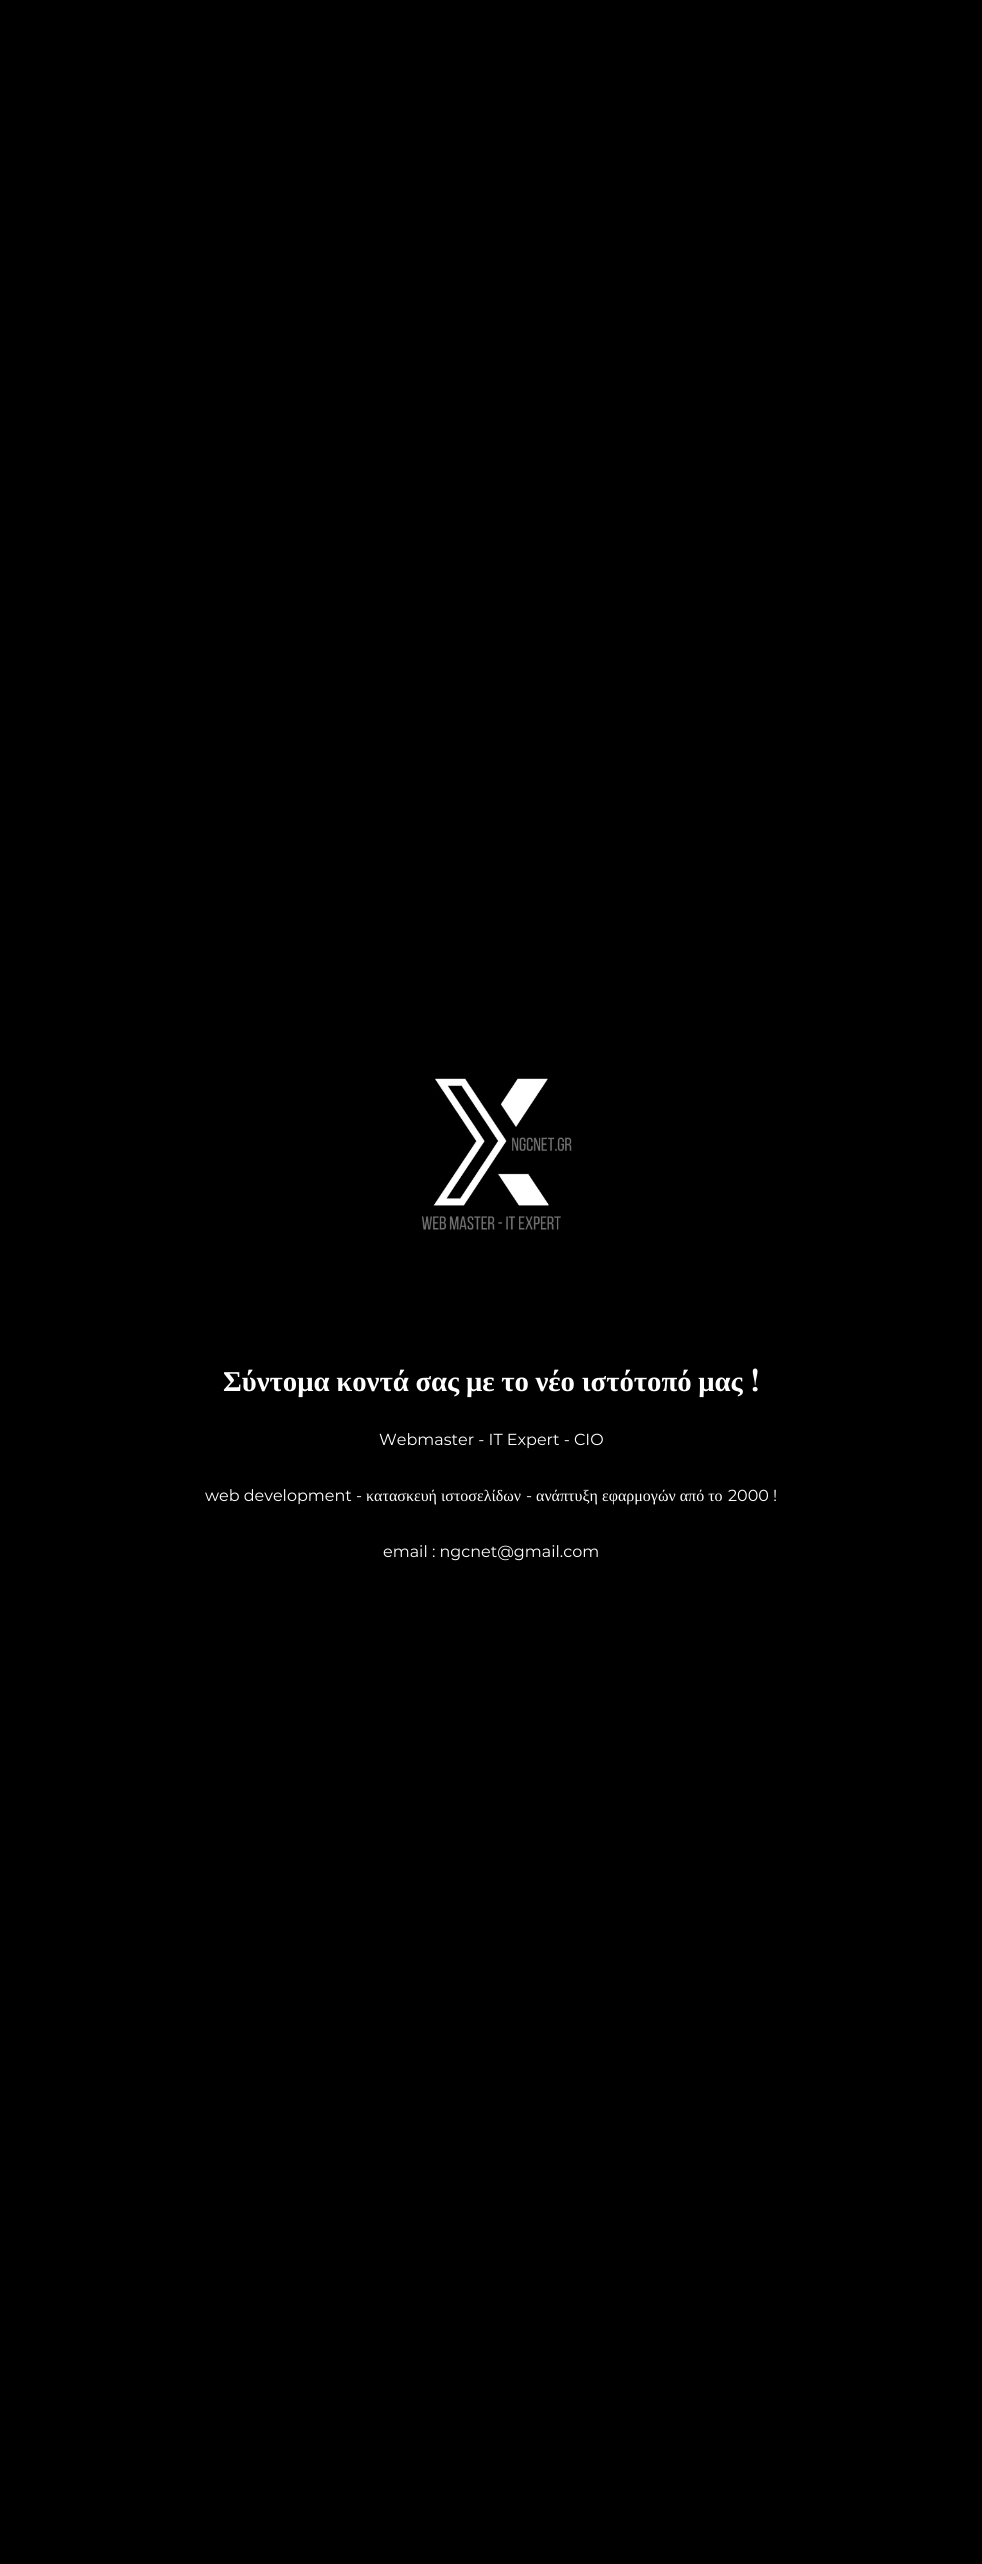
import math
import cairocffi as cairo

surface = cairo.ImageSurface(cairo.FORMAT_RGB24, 982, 2564)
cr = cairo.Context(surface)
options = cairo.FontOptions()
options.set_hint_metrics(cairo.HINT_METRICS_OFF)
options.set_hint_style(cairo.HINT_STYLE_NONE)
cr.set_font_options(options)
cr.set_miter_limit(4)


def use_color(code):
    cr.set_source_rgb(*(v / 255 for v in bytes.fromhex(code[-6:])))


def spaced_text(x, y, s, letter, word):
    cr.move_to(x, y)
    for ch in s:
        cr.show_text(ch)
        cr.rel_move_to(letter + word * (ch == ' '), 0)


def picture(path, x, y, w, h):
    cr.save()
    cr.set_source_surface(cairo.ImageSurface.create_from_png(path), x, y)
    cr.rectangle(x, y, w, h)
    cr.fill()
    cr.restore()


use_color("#000000")
cr.paint()
picture("img1.png", 421, 1078, 151, 152)
cr.select_font_face("Liberation Serif", cairo.FONT_SLANT_NORMAL, cairo.FONT_WEIGHT_BOLD)
cr.set_font_size(28.75)
use_color("#ffffff")
spaced_text(223, 1391, "Σύντομα κοντά σας με το νέο ιστότοπό μας", 0, -0.5)
cr.select_font_face("Playfair Display", cairo.FONT_SLANT_NORMAL, cairo.FONT_WEIGHT_BOLD)
cr.move_to(751, 1391)
cr.show_text("!")
cr.select_font_face("Montserrat")
cr.set_font_size(16)
cr.move_to(379, 1445)
cr.show_text("Webmaster - IT Expert - CIO")
cr.move_to(205, 1501)
cr.show_text("web development -")
cr.select_font_face("Liberation Serif")
cr.move_to(366, 1501)
cr.show_text("κατασκευή ιστοσελίδων")
cr.select_font_face("Montserrat")
cr.move_to(526, 1501)
cr.show_text("-")
cr.select_font_face("Liberation Serif")
cr.move_to(536, 1501)
cr.show_text("ανάπτυξη εφαρμογών από το")
cr.select_font_face("Montserrat")
cr.move_to(728, 1501)
cr.show_text("2000 !")
cr.move_to(383, 1557)
cr.show_text("email : ngcnet@gmail.com")
surface.write_to_png("result.png")
